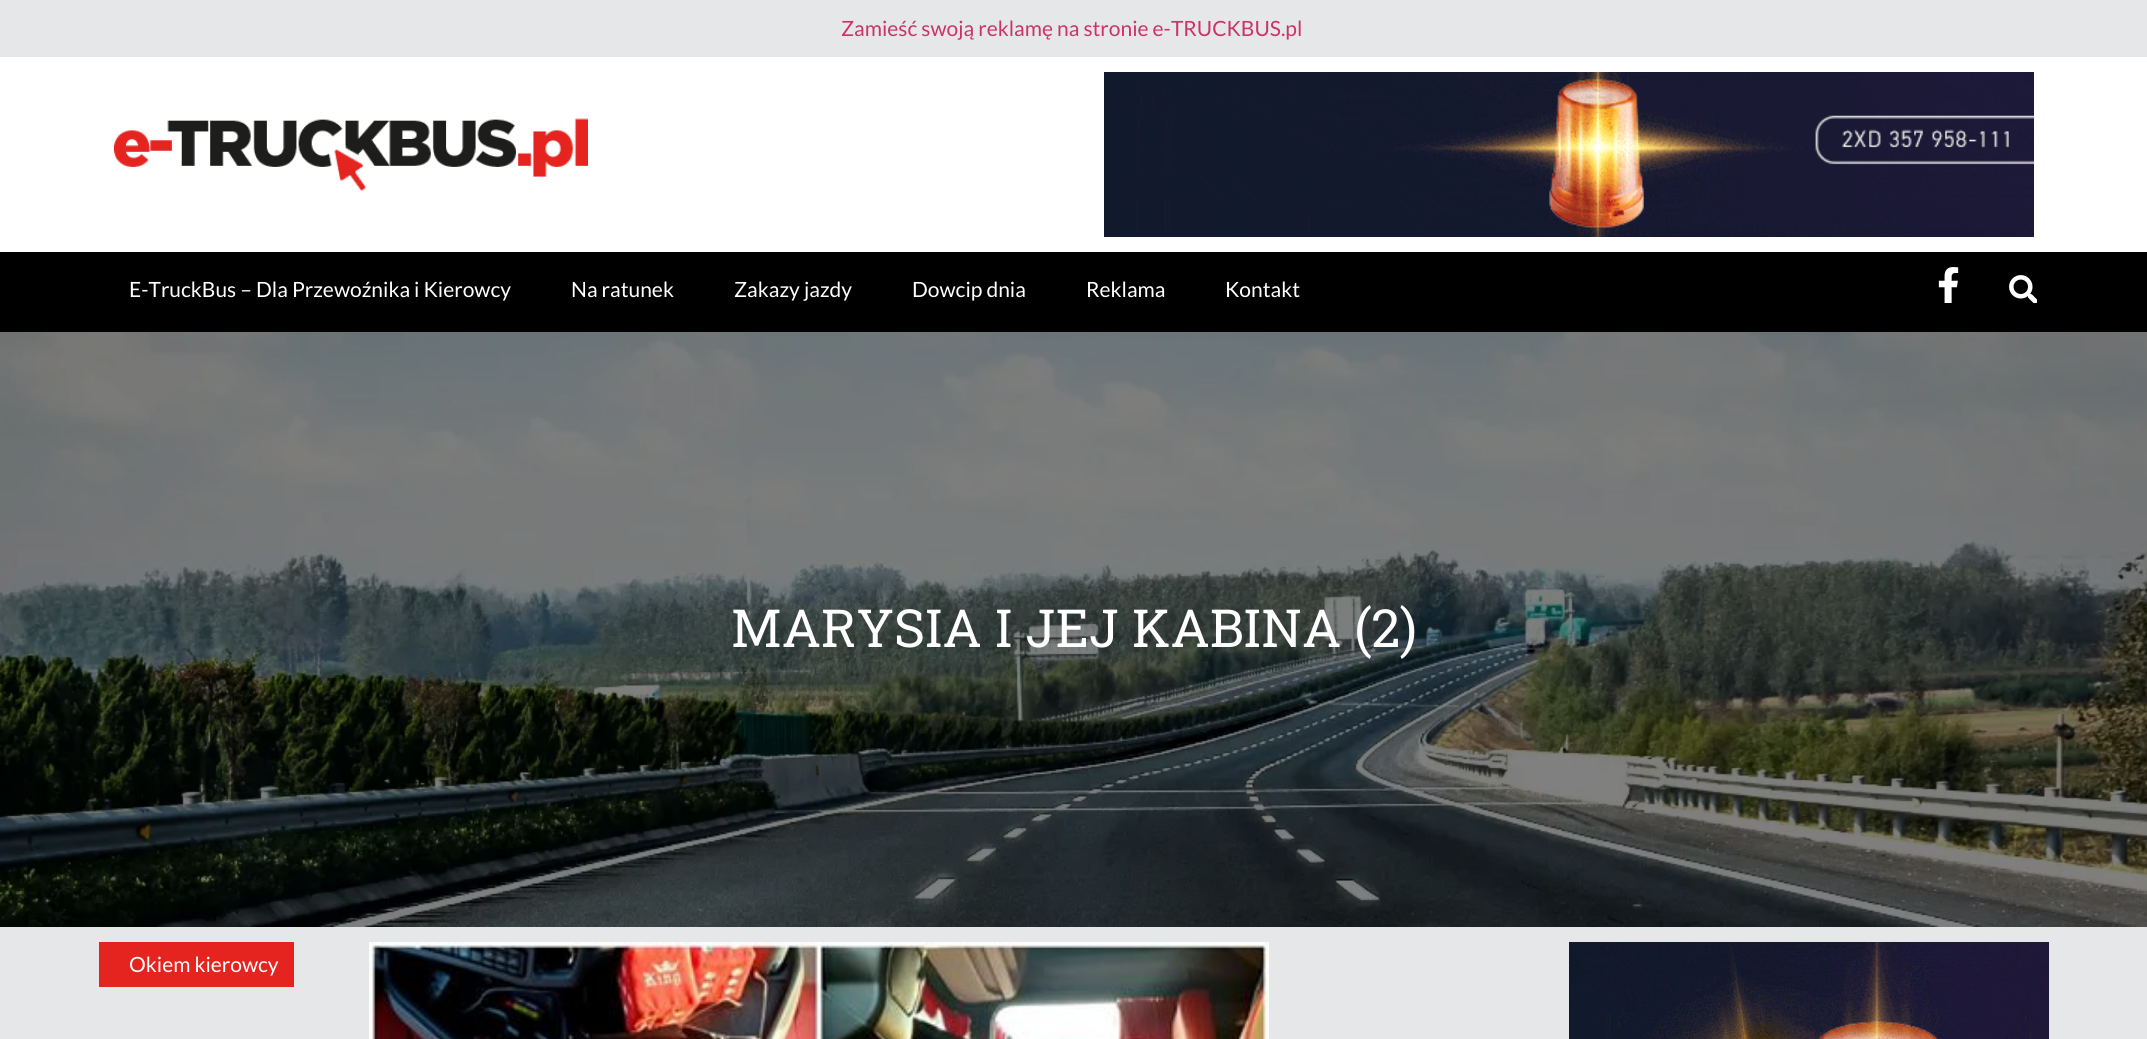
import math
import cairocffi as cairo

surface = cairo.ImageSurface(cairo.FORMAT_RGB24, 2147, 1039)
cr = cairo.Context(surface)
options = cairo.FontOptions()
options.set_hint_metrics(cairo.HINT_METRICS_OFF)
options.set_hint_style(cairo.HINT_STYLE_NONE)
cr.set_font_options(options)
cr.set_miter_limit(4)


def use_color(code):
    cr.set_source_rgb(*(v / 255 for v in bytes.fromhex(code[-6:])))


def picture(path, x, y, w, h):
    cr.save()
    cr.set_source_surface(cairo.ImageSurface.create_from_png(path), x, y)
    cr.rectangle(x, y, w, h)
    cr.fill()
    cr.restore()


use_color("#e6e7e8")
cr.paint()
cr.select_font_face("Lato")
cr.set_font_size(21)
use_color("#cc3366")
cr.move_to(841, 36)
cr.show_text("Zamieść swoją reklamę na stronie e-TRUCKBUS.pl")
use_color("#ffffff")
cr.rectangle(0, 57, 2147, 195)
cr.fill()
picture("img1.png", 114, 118, 474, 73)
picture("img2.png", 1104, 72, 930, 165)
use_color("#000000")
cr.rectangle(0, 252, 2147, 80)
cr.fill()
use_color("#ffffff")
cr.move_to(129, 297)
cr.show_text("E-TruckBus – Dla Przewoźnika i Kierowcy")
cr.move_to(571, 297)
cr.show_text("Na ratunek")
cr.move_to(734, 297)
cr.show_text("Zakazy jazdy")
cr.move_to(912, 297)
cr.show_text("Dowcip dnia")
cr.move_to(1086, 297)
cr.show_text("Reklama")
cr.move_to(1225, 297)
cr.show_text("Kontakt")
picture("img3.png", 1938, 267, 21, 36)
picture("img4.png", 2009, 275, 28, 28)
picture("img5.png", 0, 332, 2147, 595)
cr.select_font_face("Roboto Slab")
cr.set_font_size(52.5)
cr.move_to(731, 647)
cr.show_text("MARYSIA I JEJ KABINA (2)")
picture("img6.png", 369, 942, 900, 97)
use_color("#e5231f")
cr.rectangle(99, 942, 195, 45)
cr.fill()
cr.select_font_face("Lato")
cr.set_font_size(21)
use_color("#ffffff")
cr.move_to(129, 972)
cr.show_text("Okiem kierowcy")
picture("img7.png", 1569, 942, 480, 97)
surface.write_to_png("result.png")
